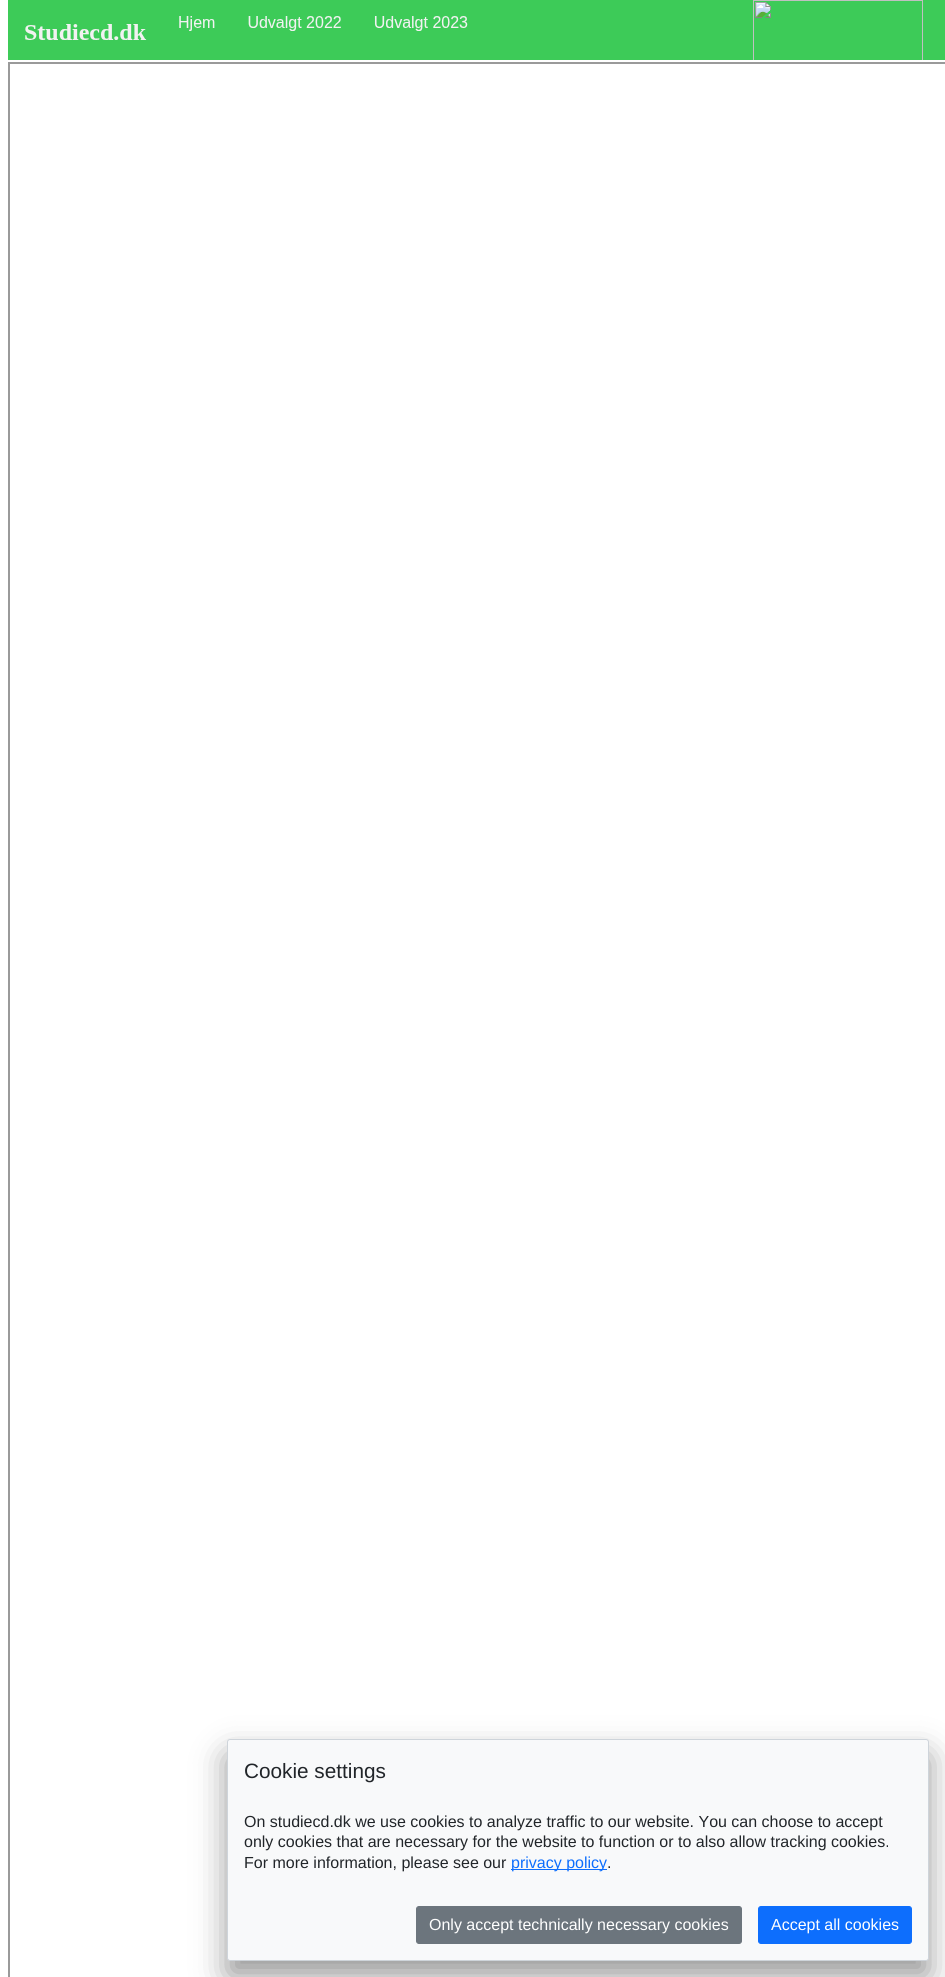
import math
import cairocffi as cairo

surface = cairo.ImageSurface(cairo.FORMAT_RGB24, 945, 1977)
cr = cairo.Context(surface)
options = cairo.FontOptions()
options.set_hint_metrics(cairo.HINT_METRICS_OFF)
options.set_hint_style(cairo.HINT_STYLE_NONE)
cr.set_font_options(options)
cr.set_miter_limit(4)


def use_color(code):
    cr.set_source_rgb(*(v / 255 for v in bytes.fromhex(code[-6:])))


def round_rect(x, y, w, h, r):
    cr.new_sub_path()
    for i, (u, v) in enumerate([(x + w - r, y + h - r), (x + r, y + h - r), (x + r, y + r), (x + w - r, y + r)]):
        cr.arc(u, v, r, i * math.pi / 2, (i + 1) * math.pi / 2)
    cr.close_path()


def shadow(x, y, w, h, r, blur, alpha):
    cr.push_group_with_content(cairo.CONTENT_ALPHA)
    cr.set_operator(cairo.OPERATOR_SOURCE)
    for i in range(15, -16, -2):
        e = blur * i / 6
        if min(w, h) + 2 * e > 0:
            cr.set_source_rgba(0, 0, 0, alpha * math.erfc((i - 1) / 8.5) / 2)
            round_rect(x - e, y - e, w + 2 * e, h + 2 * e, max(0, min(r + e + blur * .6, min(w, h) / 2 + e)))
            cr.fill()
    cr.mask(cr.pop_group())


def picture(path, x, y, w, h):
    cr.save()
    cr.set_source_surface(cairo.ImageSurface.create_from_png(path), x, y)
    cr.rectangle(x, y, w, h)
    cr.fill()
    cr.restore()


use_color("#ffffff")
cr.paint()
picture("img1.png", 8, 0, 937, 1977)
use_color("#000000")
shadow(227, 1755, 702, 222, 3, 16, 0.4)
use_color("#f8f9fa")
round_rect(227.5, 1739.5, 701, 221, 2.5)
cr.fill_preserve()
use_color("#ced4da")
cr.set_line_width(1)
cr.stroke()
cr.select_font_face("Liberation Sans")
cr.set_font_size(20.75)
use_color("#212529")
cr.move_to(244, 1778)
cr.show_text("Cookie settings")
cr.set_font_size(16)
cr.move_to(244, 1827)
cr.show_text("On studiecd.dk we use cookies to analyze traffic to our website. You can choose to accept")
cr.move_to(244, 1847)
cr.show_text("only cookies that are necessary for the website to function or to also allow tracking cookies.")
cr.move_to(244, 1868)
cr.show_text("For more information, please see our")
use_color("#0d6efd")
cr.rectangle(511, 1869, 96, 1)
cr.fill()
cr.move_to(511, 1868)
cr.show_text("privacy policy")
use_color("#212529")
cr.move_to(607, 1868)
cr.show_text(".")
use_color("#6c757d")
round_rect(416.5, 1906.5, 325, 37, 2.5)
cr.fill_preserve()
cr.stroke()
use_color("#ffffff")
cr.move_to(429, 1930)
cr.show_text("Only accept technically necessary cookies")
use_color("#0d6efd")
round_rect(758.5, 1906.5, 153, 37, 2.5)
cr.fill_preserve()
cr.stroke()
use_color("#ffffff")
cr.move_to(771, 1930)
cr.show_text("Accept all cookies")
surface.write_to_png("result.png")
